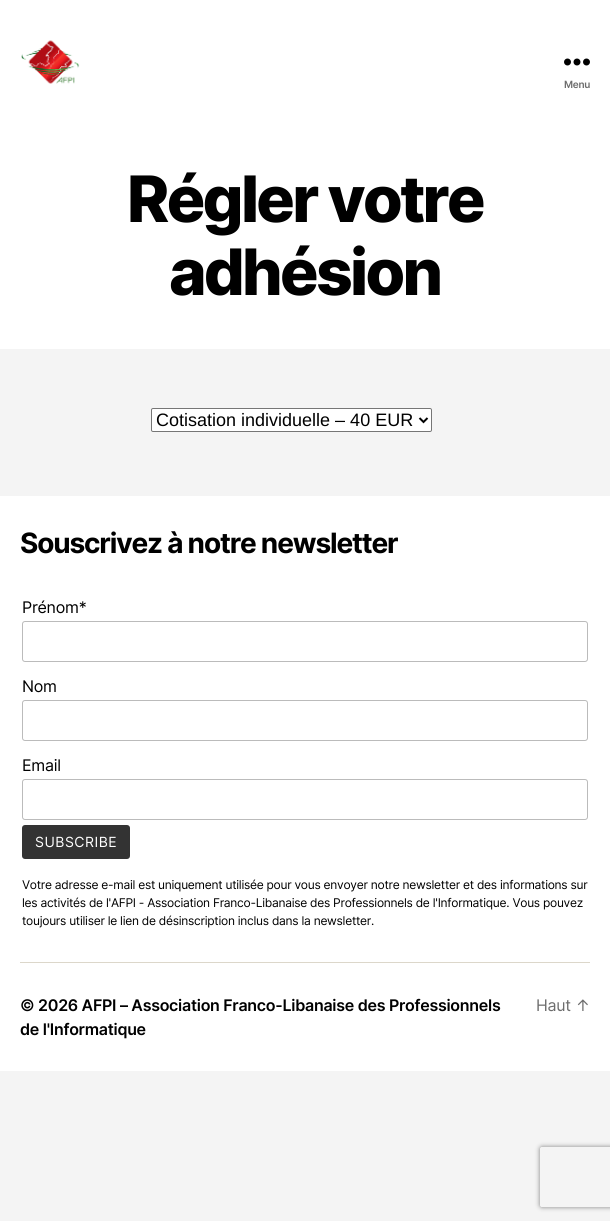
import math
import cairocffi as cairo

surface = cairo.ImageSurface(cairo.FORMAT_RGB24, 610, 1221)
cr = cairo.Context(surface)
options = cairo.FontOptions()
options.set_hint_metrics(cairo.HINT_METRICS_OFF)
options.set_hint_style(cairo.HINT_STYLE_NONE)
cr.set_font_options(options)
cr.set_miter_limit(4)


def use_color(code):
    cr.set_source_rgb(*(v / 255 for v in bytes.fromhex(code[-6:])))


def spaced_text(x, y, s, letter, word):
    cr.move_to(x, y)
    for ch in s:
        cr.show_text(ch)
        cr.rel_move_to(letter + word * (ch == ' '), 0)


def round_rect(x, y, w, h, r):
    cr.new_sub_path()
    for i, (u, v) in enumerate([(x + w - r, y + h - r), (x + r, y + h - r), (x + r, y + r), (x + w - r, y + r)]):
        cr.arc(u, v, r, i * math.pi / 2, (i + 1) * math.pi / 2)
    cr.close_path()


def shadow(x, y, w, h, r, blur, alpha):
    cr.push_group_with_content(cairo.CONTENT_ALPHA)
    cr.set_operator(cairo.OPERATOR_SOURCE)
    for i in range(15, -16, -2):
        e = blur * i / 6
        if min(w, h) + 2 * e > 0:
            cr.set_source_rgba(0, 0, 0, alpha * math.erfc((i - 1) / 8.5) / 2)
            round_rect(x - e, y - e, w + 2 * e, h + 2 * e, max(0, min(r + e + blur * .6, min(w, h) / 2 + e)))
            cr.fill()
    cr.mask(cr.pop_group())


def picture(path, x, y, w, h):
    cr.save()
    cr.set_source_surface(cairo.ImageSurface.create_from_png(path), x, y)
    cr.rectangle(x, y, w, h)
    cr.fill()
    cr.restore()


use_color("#f4f4f4")
cr.paint()
use_color("#ffffff")
cr.rectangle(0, 0, 610, 349)
cr.fill()
picture("img1.png", 21, 40, 59, 44)
picture("img2.png", 564, 58, 26, 8)
cr.select_font_face("Inter SemiBold")
cr.set_font_size(10)
use_color("#6d6d6d")
spaced_text(564, 88, "Menu", -0.27, 0)
cr.select_font_face("Inter ExtraBold")
cr.set_font_size(64)
use_color("#000000")
spaced_text(127, 222, "Régler votre", -2.7, 0)
spaced_text(169, 295, "adhésion", -2.7, 0)
use_color("#ffffff")
round_rect(151.5, 408.5, 280, 23, 1.5)
cr.fill_preserve()
use_color("#767676")
cr.set_line_width(1)
cr.stroke()
cr.new_path()
cr.move_to(419.5, 418)
cr.line_to(423.5, 422)
cr.line_to(427.5, 418)
use_color("#000000")
cr.set_line_width(2)
cr.stroke()
cr.select_font_face("Liberation Sans")
cr.set_font_size(18)
cr.move_to(156, 426)
cr.show_text("Cotisation individuelle – 40 EUR")
use_color("#ffffff")
cr.rectangle(0, 496, 610, 575)
cr.fill()
use_color("#dcd7ca")
cr.rectangle(20, 962, 570, 1)
cr.fill()
cr.select_font_face("Inter", cairo.FONT_SLANT_NORMAL, cairo.FONT_WEIGHT_BOLD)
cr.set_font_size(28)
use_color("#000000")
spaced_text(20, 553, "Souscrivez à notre newsletter", -1.15, 0)
cr.select_font_face("Inter")
cr.set_font_size(16)
spaced_text(22, 613, "Prénom*", -0.27, 0)
round_rect(22.5, 621.5, 565, 40, 2.5)
use_color("#bbbbbb")
cr.set_line_width(1)
cr.stroke()
use_color("#000000")
spaced_text(22, 692, "Nom", -0.27, 0)
round_rect(22.5, 700.5, 565, 40, 2.5)
use_color("#bbbbbb")
cr.stroke()
use_color("#000000")
spaced_text(22, 771, "Email", -0.27, 0)
round_rect(22.5, 779.5, 565, 40, 2.5)
use_color("#bbbbbb")
cr.stroke()
use_color("#333333")
round_rect(22, 825, 108, 34, 3)
cr.fill()
cr.set_font_size(14)
use_color("#ffffff")
spaced_text(35, 847, "SUBSCRIBE", 0.5, 0)
cr.set_font_size(12)
use_color("#000000")
spaced_text(22, 889, "Votre adresse e-mail est uniquement utilisée pour vous envoyer notre newsletter et des informations sur", -0.27, 0)
spaced_text(22, 907, "les activités de l'AFPI - Association Franco-Libanaise des Professionnels de l'Informatique. Vous pouvez", -0.27, 0)
spaced_text(22, 925, "toujours utiliser le lien de désinscription inclus dans la newsletter.", -0.27, 0)
cr.save()
cr.set_fill_rule(cairo.FILL_RULE_EVEN_ODD)
cr.new_path()
cr.move_to(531, 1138)
cr.line_to(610, 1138)
cr.line_to(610, 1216)
cr.line_to(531, 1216)
cr.close_path()
cr.move_to(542, 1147)
cr.line_to(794, 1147)
cr.curve_to(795, 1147, 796, 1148, 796, 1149)
cr.line_to(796, 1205)
cr.curve_to(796, 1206, 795, 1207, 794, 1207)
cr.line_to(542, 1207)
cr.curve_to(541, 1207, 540, 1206, 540, 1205)
cr.line_to(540, 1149)
cr.curve_to(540, 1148, 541, 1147, 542, 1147)
cr.close_path()
cr.clip()
use_color("#808080")
shadow(540, 1147, 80, 60, 2, 2.5, 1)
cr.restore()
cr.select_font_face("Inter SemiBold")
cr.set_font_size(16)
spaced_text(20, 1011, "© 2026 AFPI – Association Franco-Libanaise des Professionnels", -0.27, 0)
spaced_text(20, 1035, "de l'Informatique", -0.27, 0)
cr.select_font_face("Inter")
use_color("#6d6d6d")
spaced_text(536, 1011, "Haut ↑", -0.27, 0)
surface.write_to_png("result.png")
